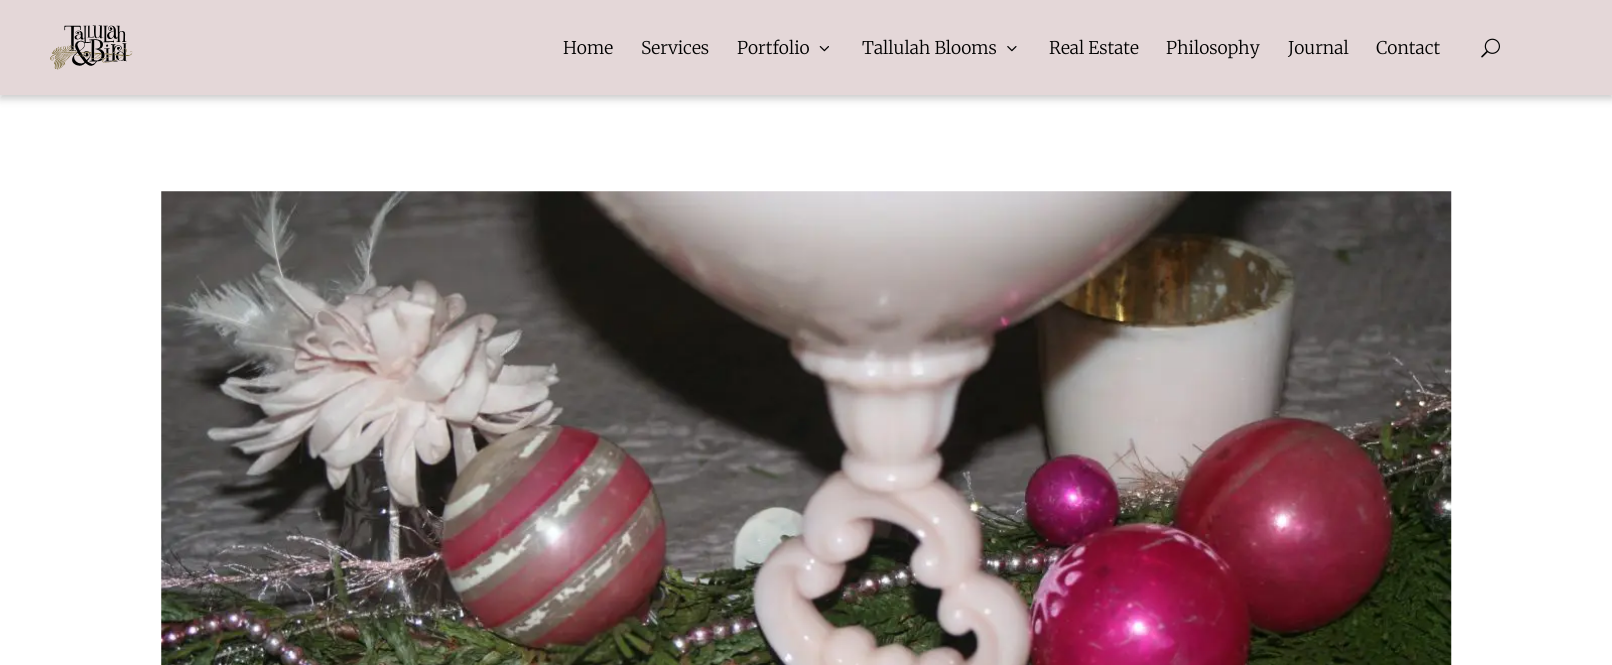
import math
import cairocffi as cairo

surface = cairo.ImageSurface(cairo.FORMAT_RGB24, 1612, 665)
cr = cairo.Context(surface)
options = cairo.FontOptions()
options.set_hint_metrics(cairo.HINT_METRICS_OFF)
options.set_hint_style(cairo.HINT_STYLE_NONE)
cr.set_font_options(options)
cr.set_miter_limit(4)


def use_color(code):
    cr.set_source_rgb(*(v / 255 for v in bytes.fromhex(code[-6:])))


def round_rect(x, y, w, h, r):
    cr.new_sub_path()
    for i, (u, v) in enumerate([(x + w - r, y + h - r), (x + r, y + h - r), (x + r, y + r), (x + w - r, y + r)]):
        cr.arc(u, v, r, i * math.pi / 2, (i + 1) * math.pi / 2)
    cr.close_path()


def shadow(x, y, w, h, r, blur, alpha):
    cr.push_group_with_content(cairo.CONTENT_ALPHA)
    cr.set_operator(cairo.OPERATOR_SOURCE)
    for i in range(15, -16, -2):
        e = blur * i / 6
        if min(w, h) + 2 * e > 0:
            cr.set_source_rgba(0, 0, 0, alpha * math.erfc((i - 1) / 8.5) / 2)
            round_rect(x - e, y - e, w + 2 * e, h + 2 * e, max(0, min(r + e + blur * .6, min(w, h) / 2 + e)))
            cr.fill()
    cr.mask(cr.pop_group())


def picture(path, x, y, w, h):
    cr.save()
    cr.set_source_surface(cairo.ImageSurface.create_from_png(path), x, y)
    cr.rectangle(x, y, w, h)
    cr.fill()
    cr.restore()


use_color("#ffffff")
cr.paint()
use_color("#000000")
shadow(0, 4, 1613, 95, 0, 4, 0.2)
use_color("#e4d7d8")
cr.rectangle(0, 0, 1612, 95)
cr.fill()
picture("img1.png", 50, 25, 83, 45)
cr.select_font_face("Merriweather Light")
cr.set_font_size(17.5)
use_color("#000000")
cr.move_to(563, 54)
cr.show_text("Home")
cr.move_to(641, 54)
cr.show_text("Services")
cr.move_to(737, 54)
cr.show_text("Portfolio")
picture("img2.png", 819, 46, 10, 6)
cr.move_to(862, 54)
cr.show_text("Tallulah Blooms")
picture("img3.png", 1007, 46, 10, 6)
cr.move_to(1049, 54)
cr.show_text("Real Estate")
cr.move_to(1166, 54)
cr.show_text("Philosophy")
cr.move_to(1288, 54)
cr.show_text("Journal")
cr.move_to(1376, 54)
cr.show_text("Contact")
picture("img4.png", 1481, 38, 19, 20)
picture("img5.png", 161, 191, 1291, 474)
surface.write_to_png("result.png")
